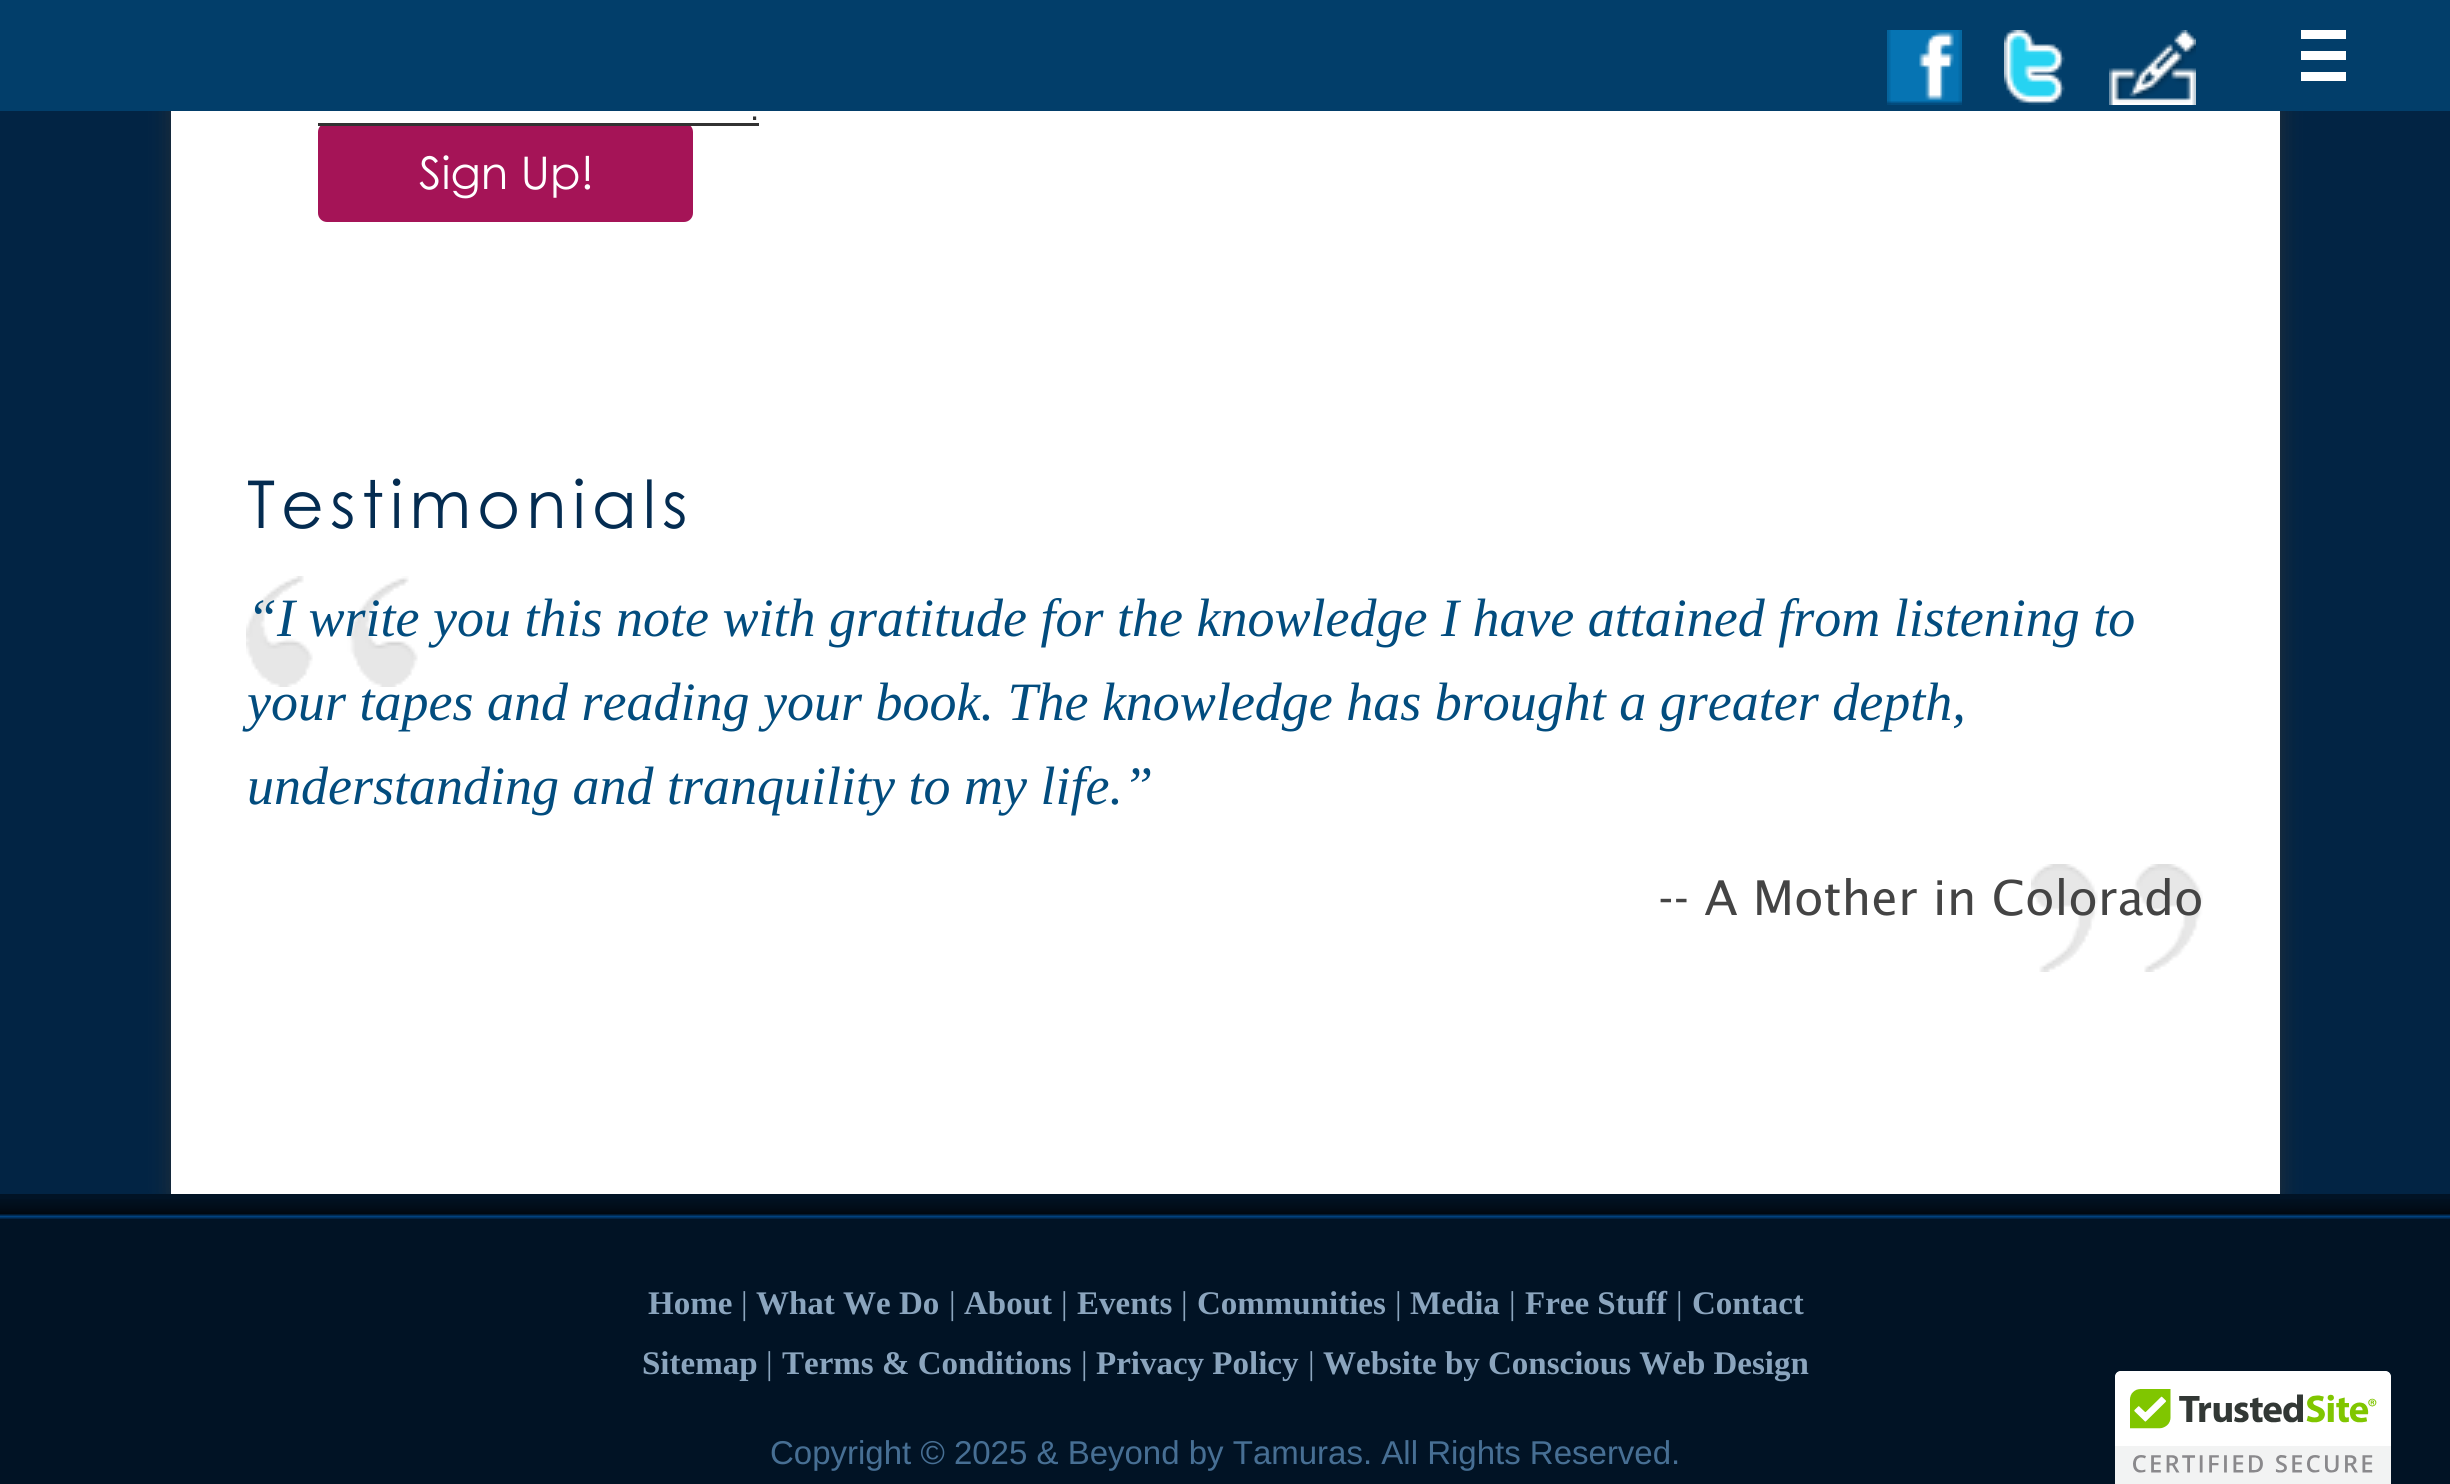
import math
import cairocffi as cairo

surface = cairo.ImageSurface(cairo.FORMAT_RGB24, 2450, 1484)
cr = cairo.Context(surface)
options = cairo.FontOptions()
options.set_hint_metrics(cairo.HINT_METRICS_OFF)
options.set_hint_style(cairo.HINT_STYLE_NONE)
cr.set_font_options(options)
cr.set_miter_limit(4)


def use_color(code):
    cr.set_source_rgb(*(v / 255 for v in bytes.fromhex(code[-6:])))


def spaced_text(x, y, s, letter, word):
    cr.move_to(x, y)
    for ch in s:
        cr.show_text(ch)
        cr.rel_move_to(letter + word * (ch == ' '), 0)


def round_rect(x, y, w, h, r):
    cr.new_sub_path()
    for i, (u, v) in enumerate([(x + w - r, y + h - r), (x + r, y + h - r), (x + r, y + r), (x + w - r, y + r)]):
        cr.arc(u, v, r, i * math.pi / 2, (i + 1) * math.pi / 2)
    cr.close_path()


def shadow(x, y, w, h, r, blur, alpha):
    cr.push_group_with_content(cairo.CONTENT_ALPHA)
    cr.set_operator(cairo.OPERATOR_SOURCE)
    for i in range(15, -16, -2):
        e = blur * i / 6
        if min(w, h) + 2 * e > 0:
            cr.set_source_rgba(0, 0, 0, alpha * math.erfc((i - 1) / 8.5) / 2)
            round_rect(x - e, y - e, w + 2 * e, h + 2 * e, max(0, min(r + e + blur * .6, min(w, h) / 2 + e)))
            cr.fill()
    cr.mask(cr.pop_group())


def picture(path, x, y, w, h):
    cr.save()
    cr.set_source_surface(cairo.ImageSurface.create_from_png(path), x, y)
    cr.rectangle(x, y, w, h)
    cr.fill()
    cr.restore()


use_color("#022444")
cr.paint()
use_color("#323232")
shadow(171, -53, 2109, 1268, 21, 10.5, 0.75)
use_color("#023e6a")
cr.rectangle(0, 0, 2450, 111)
cr.fill()
picture("img1.png", 1887, 30, 75, 75)
picture("img2.png", 2004, 30, 61, 75)
picture("img3.png", 2109, 30, 87, 75)
use_color("#ffffff")
cr.rectangle(2301, 30, 45, 9)
cr.fill()
cr.rectangle(2301, 51, 45, 9)
cr.fill()
cr.rectangle(2301, 72, 45, 9)
cr.fill()
cr.rectangle(171, 111, 2109, 1083)
cr.fill()
cr.select_font_face("Liberation Sans")
cr.set_font_size(33)
use_color("#323232")
cr.move_to(750, 120)
cr.show_text(".")
use_color("#a51457")
round_rect(319.5, 124.5, 372, 96, 7.5)
cr.fill_preserve()
cr.set_line_width(3)
cr.stroke()
use_color("#323232")
cr.rectangle(318, 123, 441, 3)
cr.fill()
cr.select_font_face("Century Gothic")
cr.set_font_size(45)
use_color("#ffffff")
cr.move_to(419, 189)
cr.show_text("Sign Up!")
cr.set_font_size(66)
use_color("#042c51")
spaced_text(247, 528, "Testimonials", 6, 0)
picture("img4.png", 246, 576, 1957, 396)
cr.select_font_face("Liberation Serif", cairo.FONT_SLANT_ITALIC)
cr.set_font_size(54)
use_color("#024c7e")
cr.move_to(247, 636)
cr.show_text("“I write you this note with gratitude for the knowledge I have attained from listening to")
cr.move_to(247, 720)
cr.show_text("your tapes and reading your book. The knowledge has brought a greater depth,")
cr.move_to(247, 804)
cr.show_text("understanding and tranquility to my life.”")
cr.select_font_face("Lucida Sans")
cr.set_font_size(48)
use_color("#444444")
cr.move_to(1658, 915)
cr.show_text("-- A Mother in Colorado")
use_color("#011325")
cr.rectangle(0, 1194, 2450, 290)
cr.fill()
picture("img5.png", 0, 1199, 2450, 20)
cr.select_font_face("Liberation Serif", cairo.FONT_SLANT_NORMAL, cairo.FONT_WEIGHT_BOLD)
cr.set_font_size(33)
use_color("#8ba5be")
cr.move_to(648, 1314)
cr.show_text("Home")
cr.select_font_face("Liberation Serif")
cr.move_to(741, 1314)
cr.show_text("|")
cr.select_font_face("Liberation Serif", cairo.FONT_SLANT_NORMAL, cairo.FONT_WEIGHT_BOLD)
cr.move_to(756, 1314)
cr.show_text("What We Do")
cr.select_font_face("Liberation Serif")
cr.move_to(949, 1314)
cr.show_text("|")
cr.select_font_face("Liberation Serif", cairo.FONT_SLANT_NORMAL, cairo.FONT_WEIGHT_BOLD)
cr.move_to(964, 1314)
cr.show_text("About")
cr.select_font_face("Liberation Serif")
cr.move_to(1061, 1314)
cr.show_text("|")
cr.select_font_face("Liberation Serif", cairo.FONT_SLANT_NORMAL, cairo.FONT_WEIGHT_BOLD)
cr.move_to(1077, 1314)
cr.show_text("Events")
cr.select_font_face("Liberation Serif")
cr.move_to(1181, 1314)
cr.show_text("|")
cr.select_font_face("Liberation Serif", cairo.FONT_SLANT_NORMAL, cairo.FONT_WEIGHT_BOLD)
cr.move_to(1197, 1314)
cr.show_text("Communities")
cr.select_font_face("Liberation Serif")
cr.move_to(1395, 1314)
cr.show_text("|")
cr.select_font_face("Liberation Serif", cairo.FONT_SLANT_NORMAL, cairo.FONT_WEIGHT_BOLD)
cr.move_to(1410, 1314)
cr.show_text("Media")
cr.select_font_face("Liberation Serif")
cr.move_to(1509, 1314)
cr.show_text("|")
cr.select_font_face("Liberation Serif", cairo.FONT_SLANT_NORMAL, cairo.FONT_WEIGHT_BOLD)
cr.move_to(1525, 1314)
cr.show_text("Free Stuff")
cr.select_font_face("Liberation Serif")
cr.move_to(1676, 1314)
cr.show_text("|")
cr.select_font_face("Liberation Serif", cairo.FONT_SLANT_NORMAL, cairo.FONT_WEIGHT_BOLD)
cr.move_to(1692, 1314)
cr.show_text("Contact")
cr.move_to(642, 1374)
cr.show_text("Sitemap")
cr.select_font_face("Liberation Serif")
cr.move_to(766, 1374)
cr.show_text("|")
cr.select_font_face("Liberation Serif", cairo.FONT_SLANT_NORMAL, cairo.FONT_WEIGHT_BOLD)
cr.move_to(782, 1374)
cr.show_text("Terms & Conditions")
cr.select_font_face("Liberation Serif")
cr.move_to(1081, 1374)
cr.show_text("|")
cr.select_font_face("Liberation Serif", cairo.FONT_SLANT_NORMAL, cairo.FONT_WEIGHT_BOLD)
cr.move_to(1096, 1374)
cr.show_text("Privacy Policy")
cr.select_font_face("Liberation Serif")
cr.move_to(1308, 1374)
cr.show_text("|")
cr.select_font_face("Liberation Serif", cairo.FONT_SLANT_NORMAL, cairo.FONT_WEIGHT_BOLD)
cr.move_to(1323, 1374)
cr.show_text("Website by Conscious Web Design")
cr.select_font_face("Liberation Sans")
use_color("#476f94")
cr.move_to(770, 1464)
cr.show_text("Copyright © 2025 & Beyond by Tamuras. All Rights Reserved.")
use_color("#ffffff")
cr.new_path()
cr.move_to(2121, 1371)
cr.line_to(2385, 1371)
cr.curve_to(2388.5, 1371, 2391, 1373.5, 2391, 1377)
cr.line_to(2391, 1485)
cr.line_to(2115, 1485)
cr.line_to(2115, 1377)
cr.curve_to(2115, 1373.5, 2117.5, 1371, 2121, 1371)
cr.close_path()
cr.fill()
picture("img6.png", 2115, 1371, 276, 113)
surface.write_to_png("result.png")
